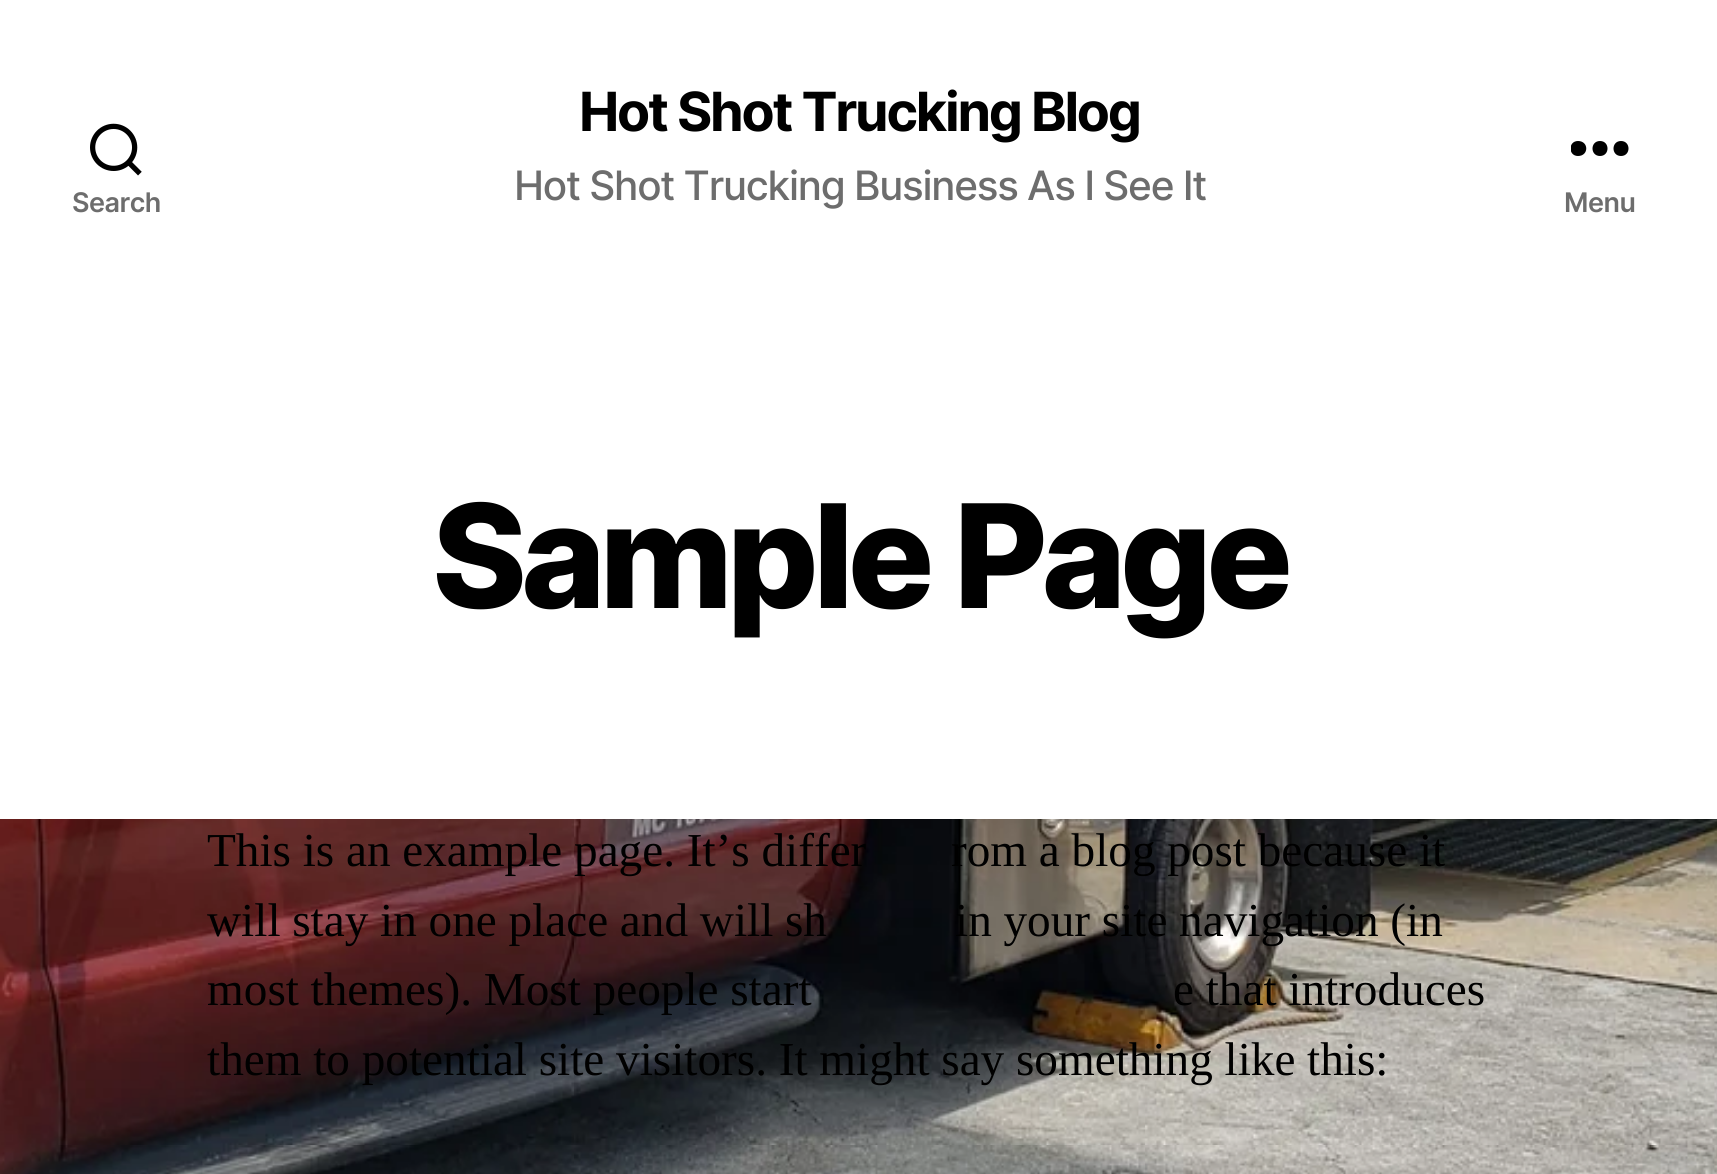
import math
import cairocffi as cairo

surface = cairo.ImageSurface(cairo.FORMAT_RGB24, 1717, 1174)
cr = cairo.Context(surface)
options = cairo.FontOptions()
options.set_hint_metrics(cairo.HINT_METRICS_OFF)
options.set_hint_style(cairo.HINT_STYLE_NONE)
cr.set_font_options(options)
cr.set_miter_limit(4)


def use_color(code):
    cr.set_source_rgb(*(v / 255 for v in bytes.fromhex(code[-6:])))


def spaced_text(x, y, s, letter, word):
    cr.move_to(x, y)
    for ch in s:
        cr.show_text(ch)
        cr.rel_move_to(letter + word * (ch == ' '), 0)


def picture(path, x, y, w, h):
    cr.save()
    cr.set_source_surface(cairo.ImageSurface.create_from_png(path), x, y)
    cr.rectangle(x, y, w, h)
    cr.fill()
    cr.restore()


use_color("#ffffff")
cr.paint()
picture("img1.png", 0, 819, 1717, 355)
picture("img2.png", 90, 123, 52, 53)
cr.select_font_face("Inter SemiBold")
cr.set_font_size(27)
use_color("#6d6d6d")
spaced_text(72, 212, "Search", -0.5, 0)
cr.select_font_face("Inter", cairo.FONT_SLANT_NORMAL, cairo.FONT_WEIGHT_BOLD)
cr.set_font_size(54)
use_color("#000000")
spaced_text(579, 131, "Hot Shot Trucking Blog", -2.25, 0)
cr.select_font_face("Inter Medium")
cr.set_font_size(40.5)
use_color("#6d6d6d")
spaced_text(514, 200, "Hot Shot Trucking Business As I See It", -1.25, 0)
cr.save()
cr.rectangle(1571, 140, 58, 18)
cr.clip()
use_color("#000000")
cr.set_fill_rule(cairo.FILL_RULE_EVEN_ODD)
cr.new_path()
cr.move_to(1578, 156)
cr.curve_to(1568, 156, 1568, 141, 1578, 141)
cr.curve_to(1589, 141, 1589, 156, 1578, 156)
cr.close_path()
cr.move_to(1600, 156)
cr.curve_to(1590, 156, 1590, 141, 1600, 141)
cr.curve_to(1610, 141, 1610, 156, 1600, 156)
cr.close_path()
cr.move_to(1621, 156)
cr.curve_to(1611, 156, 1611, 141, 1621, 141)
cr.curve_to(1631, 141, 1631, 156, 1621, 156)
cr.close_path()
cr.fill()
cr.restore()
cr.select_font_face("Inter SemiBold")
cr.set_font_size(27)
spaced_text(1564, 212, "Menu", -0.5, 0)
cr.select_font_face("Inter ExtraBold")
cr.set_font_size(144)
use_color("#000000")
spaced_text(432, 608, "Sample Page", -6, 0)
cr.select_font_face("Liberation Serif")
cr.set_font_size(47.25)
spaced_text(207, 866, "This is an example page. It’s differ", 0, -0.1)
spaced_text(951, 866, "rom a blog post because it", 0, -0.1)
spaced_text(207, 936, "will stay in one place and will sh", 0, -0.1)
spaced_text(955, 936, "in your site navigation (in", 0, -0.1)
spaced_text(207, 1005, "most themes). Most people start", 0, -0.1)
spaced_text(1173, 1005, "e that introduces", 0, -0.1)
spaced_text(207, 1075, "them to potential site visitors. It might say something like this:", 0, -0.1)
surface.write_to_png("result.png")
